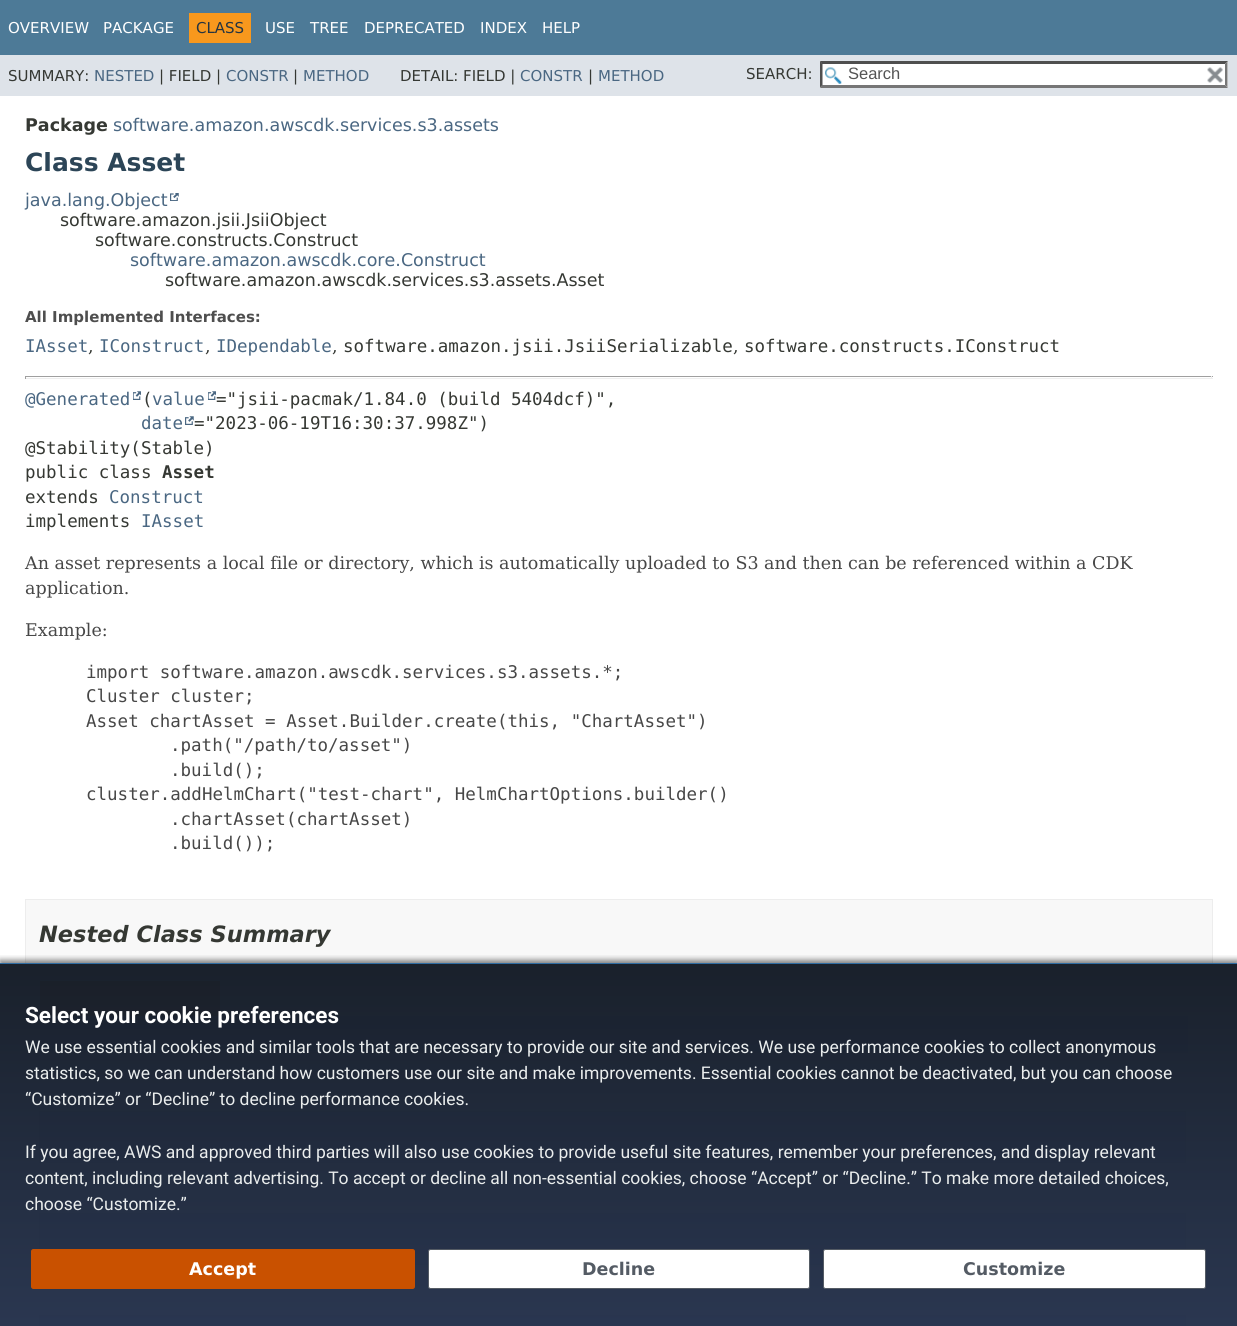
import math
import cairocffi as cairo

surface = cairo.ImageSurface(cairo.FORMAT_RGB24, 1237, 1326)
cr = cairo.Context(surface)
options = cairo.FontOptions()
options.set_hint_metrics(cairo.HINT_METRICS_OFF)
options.set_hint_style(cairo.HINT_STYLE_NONE)
cr.set_font_options(options)
cr.set_miter_limit(4)


def use_color(code):
    cr.set_source_rgb(*(v / 255 for v in bytes.fromhex(code[-6:])))


def round_rect(x, y, w, h, r):
    cr.new_sub_path()
    for i, (u, v) in enumerate([(x + w - r, y + h - r), (x + r, y + h - r), (x + r, y + r), (x + w - r, y + r)]):
        cr.arc(u, v, r, i * math.pi / 2, (i + 1) * math.pi / 2)
    cr.close_path()


def shadow(x, y, w, h, r, blur, alpha):
    cr.push_group_with_content(cairo.CONTENT_ALPHA)
    cr.set_operator(cairo.OPERATOR_SOURCE)
    for i in range(15, -16, -2):
        e = blur * i / 6
        if min(w, h) + 2 * e > 0:
            cr.set_source_rgba(0, 0, 0, alpha * math.erfc((i - 1) / 8.5) / 2)
            round_rect(x - e, y - e, w + 2 * e, h + 2 * e, max(0, min(r + e + blur * .6, min(w, h) / 2 + e)))
            cr.fill()
    cr.mask(cr.pop_group())


def picture(path, x, y, w, h):
    cr.save()
    cr.set_source_surface(cairo.ImageSurface.create_from_png(path), x, y)
    cr.rectangle(x, y, w, h)
    cr.fill()
    cr.restore()


use_color("#ffffff")
cr.paint()
use_color("#4d7a97")
cr.rectangle(0, 0, 1237, 55)
cr.fill()
cr.select_font_face("DejaVu Sans")
cr.set_font_size(15)
use_color("#ffffff")
cr.move_to(8, 33)
cr.show_text("OVERVIEW")
cr.move_to(103, 33)
cr.show_text("PACKAGE")
use_color("#f8981d")
cr.rectangle(189, 13, 62, 30)
cr.fill()
use_color("#253441")
cr.move_to(196, 33)
cr.show_text("CLASS")
use_color("#ffffff")
cr.move_to(265, 33)
cr.show_text("USE")
cr.move_to(310, 33)
cr.show_text("TREE")
cr.move_to(364, 33)
cr.show_text("DEPRECATED")
cr.move_to(480, 33)
cr.show_text("INDEX")
cr.move_to(542, 33)
cr.show_text("HELP")
use_color("#dee3e9")
cr.rectangle(0, 55, 1237, 41)
cr.fill()
use_color("#353833")
cr.move_to(8, 81)
cr.show_text("SUMMARY:")
use_color("#4a6782")
cr.move_to(94, 81)
cr.show_text("NESTED")
use_color("#353833")
cr.move_to(159, 81)
cr.show_text("| FIELD |")
use_color("#4a6782")
cr.move_to(226, 81)
cr.show_text("CONSTR")
use_color("#353833")
cr.move_to(293, 81)
cr.show_text("|")
use_color("#4a6782")
cr.move_to(303, 81)
cr.show_text("METHOD")
use_color("#353833")
cr.move_to(400, 81)
cr.show_text("DETAIL: FIELD |")
use_color("#4a6782")
cr.move_to(520, 81)
cr.show_text("CONSTR")
use_color("#353833")
cr.move_to(588, 81)
cr.show_text("|")
use_color("#4a6782")
cr.move_to(598, 81)
cr.show_text("METHOD")
use_color("#353833")
cr.move_to(746, 79)
cr.show_text("SEARCH:")
use_color("#ffffff")
cr.rectangle(820, 61, 408, 27)
cr.fill()
picture("img1.png", 825, 67, 17, 17)
use_color("#4f4f4f")
cr.new_path()
cr.move_to(820, 61)
cr.line_to(1228, 61)
cr.line_to(1225, 64)
cr.line_to(822, 64)
cr.close_path()
cr.fill()
use_color("#767676")
cr.new_path()
cr.move_to(1227.5, 61)
cr.line_to(1227.5, 87.5)
cr.line_to(1225, 85)
cr.line_to(1225, 64)
cr.close_path()
cr.fill()
cr.new_path()
cr.move_to(1228, 88)
cr.line_to(820, 88)
cr.line_to(822, 85)
cr.line_to(1225, 85)
cr.close_path()
cr.fill()
use_color("#4f4f4f")
cr.new_path()
cr.move_to(820, 87.5)
cr.line_to(820, 61)
cr.line_to(822.5, 64)
cr.line_to(822.5, 85)
cr.close_path()
cr.fill()
cr.select_font_face("Liberation Sans")
cr.set_font_size(16.5)
use_color("#545454")
cr.move_to(848, 79)
cr.show_text("Search")
picture("img2.png", 1207, 67, 16, 16)
cr.select_font_face("DejaVu Sans", cairo.FONT_SLANT_NORMAL, cairo.FONT_WEIGHT_BOLD)
cr.set_font_size(17.5)
use_color("#353833")
cr.move_to(25, 131)
cr.show_text("Package")
cr.select_font_face("DejaVu Sans")
use_color("#4a6782")
cr.move_to(113, 131)
cr.show_text("software.amazon.awscdk.services.s3.assets")
cr.select_font_face("DejaVu Sans", cairo.FONT_SLANT_NORMAL, cairo.FONT_WEIGHT_BOLD)
cr.set_font_size(25)
use_color("#2c4557")
cr.move_to(25, 171)
cr.show_text("Class Asset")
cr.select_font_face("DejaVu Sans")
cr.set_font_size(17.5)
use_color("#4a6782")
cr.move_to(25, 206)
cr.show_text("java.lang.Object")
picture("img3.png", 170, 193, 9, 8)
use_color("#353833")
cr.move_to(60, 226)
cr.show_text("software.amazon.jsii.JsiiObject")
cr.move_to(95, 246)
cr.show_text("software.constructs.Construct")
use_color("#4a6782")
cr.move_to(130, 266)
cr.show_text("software.amazon.awscdk.core.Construct")
use_color("#353833")
cr.move_to(165, 286)
cr.show_text("software.amazon.awscdk.services.s3.assets.Asset")
cr.select_font_face("DejaVu Sans", cairo.FONT_SLANT_NORMAL, cairo.FONT_WEIGHT_BOLD)
cr.set_font_size(15)
use_color("#4e4e4e")
cr.move_to(25, 322)
cr.show_text("All Implemented Interfaces:")
cr.select_font_face("DejaVu Sans Mono")
cr.set_font_size(17.5)
use_color("#4a6782")
cr.move_to(25, 352)
cr.show_text("IAsset")
cr.select_font_face("DejaVu Serif")
use_color("#353833")
cr.move_to(88, 352)
cr.show_text(",")
cr.select_font_face("DejaVu Sans Mono")
use_color("#4a6782")
cr.move_to(99, 352)
cr.show_text("IConstruct")
cr.select_font_face("DejaVu Serif")
use_color("#353833")
cr.move_to(205, 352)
cr.show_text(",")
cr.select_font_face("DejaVu Sans Mono")
use_color("#4a6782")
cr.move_to(216, 352)
cr.show_text("IDependable")
cr.select_font_face("DejaVu Serif")
use_color("#353833")
cr.move_to(332, 352)
cr.show_text(",")
cr.select_font_face("DejaVu Sans Mono")
cr.move_to(343, 352)
cr.show_text("software.amazon.jsii.JsiiSerializable")
cr.select_font_face("DejaVu Serif")
cr.move_to(733, 352)
cr.show_text(",")
cr.select_font_face("DejaVu Sans Mono")
cr.move_to(744, 352)
cr.show_text("software.constructs.IConstruct")
use_color("#9f9f9f")
cr.rectangle(25, 376, 1188, 1)
cr.fill()
use_color("#eeeeee")
cr.rectangle(1211, 376, 1, 3)
cr.fill()
cr.rectangle(25, 378, 1188, 1)
cr.fill()
use_color("#9f9f9f")
cr.rectangle(25, 376, 1, 3)
cr.fill()
use_color("#4a6782")
cr.move_to(25, 405)
cr.show_text("@Generated")
picture("img4.png", 133, 391, 8, 9)
use_color("#353833")
cr.move_to(142, 405)
cr.show_text("(")
use_color("#4a6782")
cr.move_to(152, 405)
cr.show_text("value")
picture("img4.png", 208, 391, 8, 9)
use_color("#353833")
cr.move_to(216, 405)
cr.show_text("=\"jsii-pacmak/1.84.0 (build 5404dcf)\",")
use_color("#4a6782")
cr.move_to(141, 429)
cr.show_text("date")
picture("img5.png", 185, 416, 9, 9)
use_color("#353833")
cr.move_to(194, 429)
cr.show_text("=\"2023-06-19T16:30:37.998Z\")")
cr.move_to(25, 454)
cr.show_text("@Stability(Stable)")
cr.move_to(25, 478)
cr.show_text("public class")
cr.select_font_face("DejaVu Sans Mono", cairo.FONT_SLANT_NORMAL, cairo.FONT_WEIGHT_BOLD)
cr.move_to(162, 478)
cr.show_text("Asset")
cr.select_font_face("DejaVu Sans Mono")
cr.move_to(25, 503)
cr.show_text("extends")
use_color("#4a6782")
cr.move_to(109, 503)
cr.show_text("Construct")
use_color("#353833")
cr.move_to(25, 527)
cr.show_text("implements")
use_color("#4a6782")
cr.move_to(141, 527)
cr.show_text("IAsset")
cr.select_font_face("DejaVu Serif")
use_color("#474747")
cr.move_to(25, 569)
cr.show_text("An asset represents a local file or directory, which is automatically uploaded to S3 and then can be referenced within a CDK")
cr.move_to(25, 594)
cr.show_text("application.")
cr.move_to(25, 636)
cr.show_text("Example:")
cr.select_font_face("DejaVu Sans Mono")
cr.move_to(86, 678)
cr.show_text("import software.amazon.awscdk.services.s3.assets.*;")
cr.move_to(86, 702)
cr.show_text("Cluster cluster;")
cr.move_to(86, 727)
cr.show_text("Asset chartAsset = Asset.Builder.create(this, \"ChartAsset\")")
cr.move_to(170, 751)
cr.show_text(".path(\"/path/to/asset\")")
cr.move_to(170, 776)
cr.show_text(".build();")
cr.move_to(86, 800)
cr.show_text("cluster.addHelmChart(\"test-chart\", HelmChartOptions.builder()")
cr.move_to(170, 825)
cr.show_text(".chartAsset(chartAsset)")
cr.move_to(170, 849)
cr.show_text(".build());")
use_color("#f8f8f8")
cr.rectangle(25.5, 899.5, 1187, 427)
cr.fill_preserve()
use_color("#ededed")
cr.set_line_width(1)
cr.stroke()
cr.select_font_face("DejaVu Sans", cairo.FONT_SLANT_ITALIC, cairo.FONT_WEIGHT_BOLD)
cr.set_font_size(22.5)
use_color("#353833")
cr.move_to(39, 942)
cr.show_text("Nested Class Summary")
use_color("#f8981d")
cr.rectangle(40, 981, 180, 35)
cr.fill()
use_color("#eeeeee")
cr.rectangle(1188, 1016, 1, 83)
cr.fill()
cr.rectangle(39, 1098, 1150, 1)
cr.fill()
cr.rectangle(39, 1016, 1, 83)
cr.fill()
use_color("#dee3e9")
cr.rectangle(40, 1016, 385, 37)
cr.fill()
cr.rectangle(425, 1016, 763, 37)
cr.fill()
use_color("#ffffff")
cr.rectangle(40, 1053, 385, 45)
cr.fill()
cr.rectangle(425, 1053, 763, 45)
cr.fill()
cr.rectangle(39, 1163, 1147, 37)
cr.fill()
use_color("#dee3e9")
cr.rectangle(39.5, 1111.5, 1146, 51)
cr.fill_preserve()
use_color("#d0d9e0")
cr.stroke()
use_color("#ffffff")
cr.rectangle(39, 1265, 1147, 38)
cr.fill()
use_color("#dee3e9")
cr.rectangle(39.5, 1213.5, 1146, 51)
cr.fill_preserve()
use_color("#d0d9e0")
cr.stroke()
use_color("#dee3e9")
cr.rectangle(39.5, 1315.5, 1146, 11)
cr.fill_preserve()
use_color("#d0d9e0")
cr.stroke()
cr.save()
cr.rectangle(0, 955, 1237, 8)
cr.clip()
use_color("#000000")
shadow(0, 960, 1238, 364, 0, 3, 0.5)
cr.restore()
gradient = cairo.LinearGradient(619, 964, 619, 1326)
gradient.add_color_stop_rgba(0, 0.082, 0.11, 0.153, 0.98)
gradient.add_color_stop_rgba(1, 0.149, 0.2, 0.302, 0.98)
cr.set_source(gradient)
cr.rectangle(0, 964, 1237, 362)
cr.fill()
use_color("#306da3")
cr.rectangle(0, 963, 1237, 1)
cr.fill()
cr.select_font_face("Roboto", cairo.FONT_SLANT_NORMAL, cairo.FONT_WEIGHT_BOLD)
use_color("#ffffff")
cr.move_to(25, 1023)
cr.show_text("Select your cookie preferences")
cr.select_font_face("Roboto")
cr.set_font_size(17.5)
use_color("#eaeded")
cr.move_to(25, 1053)
cr.show_text("We use essential cookies and similar tools that are necessary to provide our site and services. We use performance cookies to collect anonymous")
cr.move_to(25, 1079)
cr.show_text("statistics, so we can understand how customers use our site and make improvements. Essential cookies cannot be deactivated, but you can choose")
cr.move_to(25, 1105)
cr.show_text("“Customize” or “Decline” to decline performance cookies.")
cr.move_to(25, 1158)
cr.show_text("If you agree, AWS and approved third parties will also use cookies to provide useful site features, remember your preferences, and display relevant")
cr.move_to(25, 1184)
cr.show_text("content, including relevant advertising. To accept or decline all non-essential cookies, choose “Accept” or “Decline.” To make more detailed choices,")
cr.move_to(25, 1210)
cr.show_text("choose “Customize.”")
use_color("#c95100")
round_rect(31.5, 1249.5, 383, 39, 2)
cr.fill_preserve()
cr.stroke()
cr.select_font_face("DejaVu Sans", cairo.FONT_SLANT_NORMAL, cairo.FONT_WEIGHT_BOLD)
use_color("#ffffff")
cr.move_to(189, 1275)
cr.show_text("Accept")
round_rect(428.5, 1249.5, 381, 39, 2)
cr.fill_preserve()
use_color("#545b64")
cr.stroke()
cr.move_to(582, 1275)
cr.show_text("Decline")
use_color("#ffffff")
round_rect(823.5, 1249.5, 382, 39, 2)
cr.fill_preserve()
use_color("#545b64")
cr.stroke()
cr.move_to(963, 1275)
cr.show_text("Customize")
surface.write_to_png("result.png")
